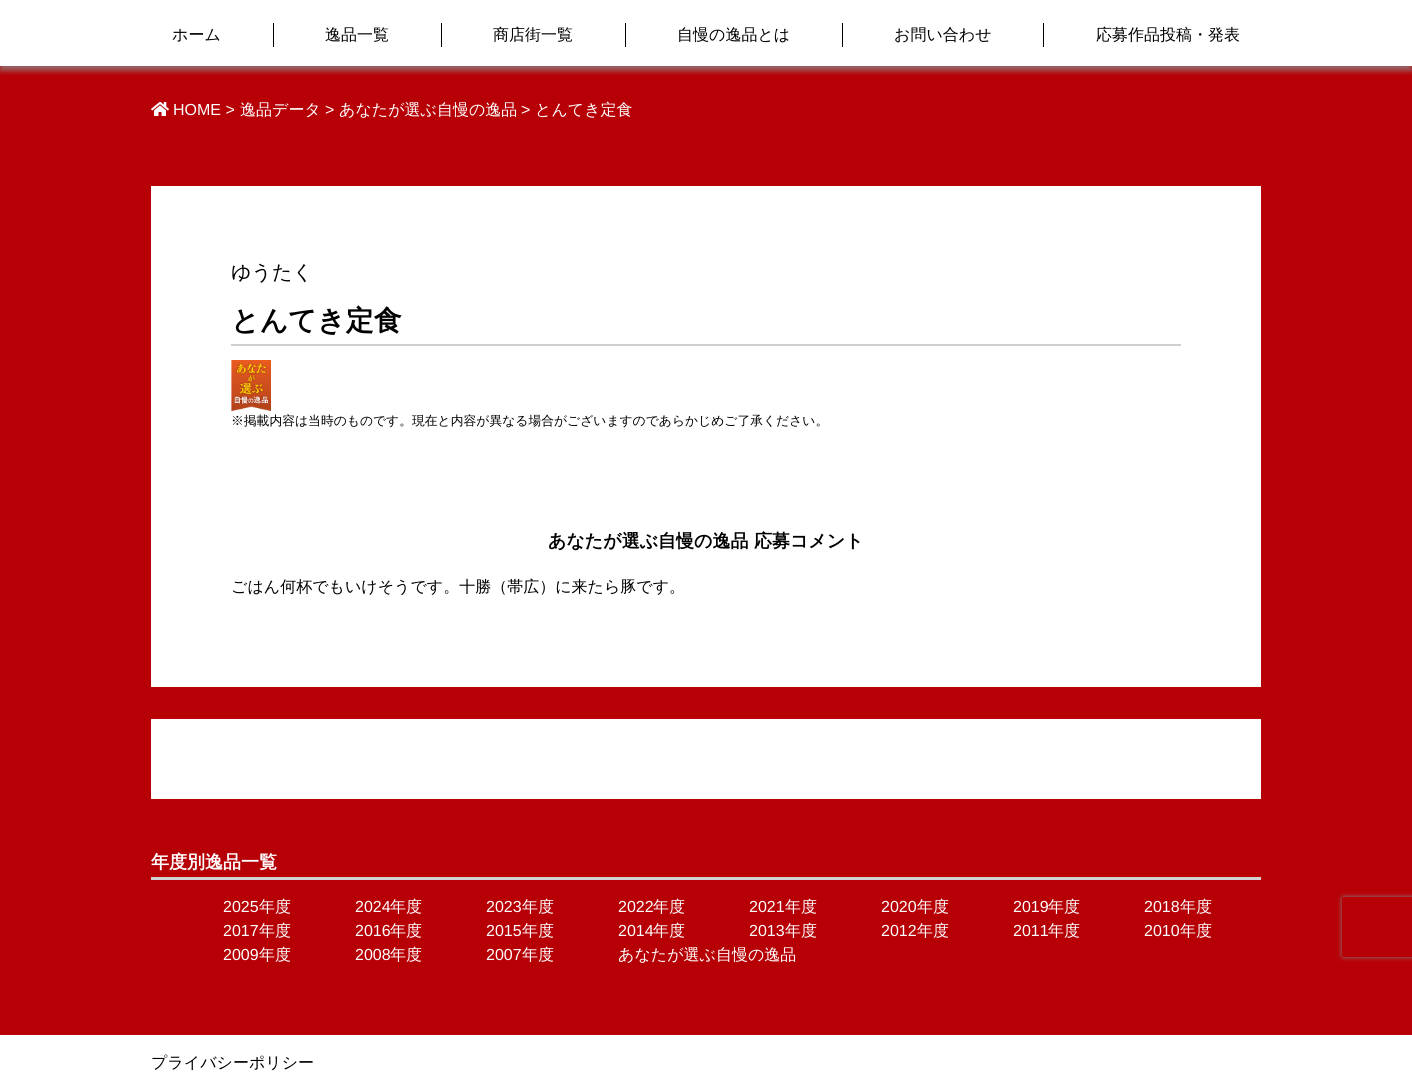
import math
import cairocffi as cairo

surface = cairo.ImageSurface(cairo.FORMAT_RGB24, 1412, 1077)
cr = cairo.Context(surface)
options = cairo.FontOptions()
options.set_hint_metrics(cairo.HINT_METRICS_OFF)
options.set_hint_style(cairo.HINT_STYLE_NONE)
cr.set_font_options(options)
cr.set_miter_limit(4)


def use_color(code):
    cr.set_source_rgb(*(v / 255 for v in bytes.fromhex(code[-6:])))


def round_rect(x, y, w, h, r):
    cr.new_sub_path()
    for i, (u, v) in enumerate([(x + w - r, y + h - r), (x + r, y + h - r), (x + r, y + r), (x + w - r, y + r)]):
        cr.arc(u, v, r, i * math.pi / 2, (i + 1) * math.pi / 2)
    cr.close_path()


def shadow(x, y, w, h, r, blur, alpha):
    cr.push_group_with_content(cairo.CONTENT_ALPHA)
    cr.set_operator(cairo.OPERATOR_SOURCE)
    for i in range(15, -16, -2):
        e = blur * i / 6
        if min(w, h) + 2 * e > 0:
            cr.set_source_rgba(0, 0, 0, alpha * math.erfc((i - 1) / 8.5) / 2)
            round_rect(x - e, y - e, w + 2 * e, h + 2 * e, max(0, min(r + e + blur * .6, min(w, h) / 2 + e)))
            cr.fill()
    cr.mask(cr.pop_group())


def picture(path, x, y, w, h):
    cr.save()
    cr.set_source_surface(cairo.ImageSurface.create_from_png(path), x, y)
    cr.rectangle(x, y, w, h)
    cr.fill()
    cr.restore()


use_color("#ffffff")
cr.paint()
use_color("#b60005")
cr.rectangle(0, 66, 1412, 969)
cr.fill()
cr.save()
cr.rectangle(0, 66, 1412, 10)
cr.clip()
use_color("#8a8a8a")
shadow(0, 5, 1412, 66, 0, 2.5, 0.7)
cr.restore()
cr.select_font_face("WenQuanYi Zen Hei Medium")
cr.set_font_size(16)
use_color("#000000")
cr.move_to(172, 40)
cr.show_text("ホーム")
cr.rectangle(273, 23, 1, 24)
cr.fill()
cr.move_to(325, 40)
cr.show_text("逸品一覧")
cr.rectangle(441, 23, 1, 24)
cr.fill()
cr.move_to(493, 40)
cr.show_text("商店街一覧")
cr.rectangle(625, 23, 1, 24)
cr.fill()
cr.move_to(677, 40)
cr.show_text("自慢の逸品とは")
cr.rectangle(842, 23, 1, 24)
cr.fill()
cr.move_to(894, 40)
cr.show_text("お問い合わせ")
cr.rectangle(1043, 23, 1, 24)
cr.fill()
cr.move_to(1096, 40)
cr.show_text("応募作品投稿・発表")
picture("img1.png", 151, 102, 18, 14)
cr.select_font_face("Liberation Sans")
use_color("#ffffff")
cr.move_to(173, 115)
cr.show_text("HOME >")
cr.select_font_face("WenQuanYi Zen Hei Medium")
cr.move_to(240, 115)
cr.show_text("逸品データ")
cr.select_font_face("Liberation Sans")
cr.move_to(325, 115)
cr.show_text(">")
cr.select_font_face("WenQuanYi Zen Hei Medium")
cr.move_to(339, 115)
cr.show_text("あなたが選ぶ自慢の逸品")
cr.select_font_face("Liberation Sans")
cr.move_to(521, 115)
cr.show_text(">")
cr.select_font_face("WenQuanYi Zen Hei Medium")
cr.move_to(535, 115)
cr.show_text("とんてき定食")
cr.rectangle(151, 186, 1110, 501)
cr.fill()
use_color("#cfcfcf")
cr.rectangle(231, 344, 950, 2)
cr.fill()
cr.set_font_size(20)
use_color("#000000")
cr.move_to(231, 279)
cr.show_text("ゆうたく")
cr.select_font_face("WenQuanYi Zen Hei", cairo.FONT_SLANT_NORMAL, cairo.FONT_WEIGHT_BOLD)
cr.set_font_size(28)
cr.move_to(231, 330)
cr.show_text("とんてき定食")
picture("img2.png", 231, 360, 40, 51)
cr.select_font_face("WenQuanYi Zen Hei Medium")
cr.set_font_size(12.8)
cr.move_to(231, 425)
cr.show_text("※掲載内容は当時のものです。現在と内容が異なる場合がございますのであらかじめご了承ください。")
cr.select_font_face("WenQuanYi Zen Hei", cairo.FONT_SLANT_NORMAL, cairo.FONT_WEIGHT_BOLD)
cr.set_font_size(18)
cr.move_to(548, 547)
cr.show_text("あなたが選ぶ自慢の逸品 応募コメント")
cr.select_font_face("WenQuanYi Zen Hei Medium")
cr.set_font_size(16)
cr.move_to(231, 592)
cr.show_text("ごはん何杯でもいけそうです。十勝（帯広）に来たら豚です。")
use_color("#ffffff")
cr.rectangle(151, 719, 1110, 80)
cr.fill()
use_color("#d2d2d2")
cr.rectangle(151, 877, 1110, 3)
cr.fill()
cr.select_font_face("WenQuanYi Zen Hei", cairo.FONT_SLANT_NORMAL, cairo.FONT_WEIGHT_BOLD)
cr.set_font_size(18)
use_color("#ffffff")
cr.move_to(151, 868)
cr.show_text("年度別逸品一覧")
cr.select_font_face("Liberation Sans")
cr.set_font_size(16)
cr.move_to(223, 912)
cr.show_text("2025")
cr.select_font_face("WenQuanYi Zen Hei Medium")
cr.move_to(259, 912)
cr.show_text("年度")
cr.select_font_face("Liberation Sans")
cr.move_to(355, 912)
cr.show_text("2024")
cr.select_font_face("WenQuanYi Zen Hei Medium")
cr.move_to(390, 912)
cr.show_text("年度")
cr.select_font_face("Liberation Sans")
cr.move_to(486, 912)
cr.show_text("2023")
cr.select_font_face("WenQuanYi Zen Hei Medium")
cr.move_to(522, 912)
cr.show_text("年度")
cr.select_font_face("Liberation Sans")
cr.move_to(618, 912)
cr.show_text("2022")
cr.select_font_face("WenQuanYi Zen Hei Medium")
cr.move_to(653, 912)
cr.show_text("年度")
cr.select_font_face("Liberation Sans")
cr.move_to(749, 912)
cr.show_text("2021")
cr.select_font_face("WenQuanYi Zen Hei Medium")
cr.move_to(785, 912)
cr.show_text("年度")
cr.select_font_face("Liberation Sans")
cr.move_to(881, 912)
cr.show_text("2020")
cr.select_font_face("WenQuanYi Zen Hei Medium")
cr.move_to(917, 912)
cr.show_text("年度")
cr.select_font_face("Liberation Sans")
cr.move_to(1013, 912)
cr.show_text("2019")
cr.select_font_face("WenQuanYi Zen Hei Medium")
cr.move_to(1048, 912)
cr.show_text("年度")
cr.select_font_face("Liberation Sans")
cr.move_to(1144, 912)
cr.show_text("2018")
cr.select_font_face("WenQuanYi Zen Hei Medium")
cr.move_to(1180, 912)
cr.show_text("年度")
cr.select_font_face("Liberation Sans")
cr.move_to(223, 936)
cr.show_text("2017")
cr.select_font_face("WenQuanYi Zen Hei Medium")
cr.move_to(259, 936)
cr.show_text("年度")
cr.select_font_face("Liberation Sans")
cr.move_to(355, 936)
cr.show_text("2016")
cr.select_font_face("WenQuanYi Zen Hei Medium")
cr.move_to(390, 936)
cr.show_text("年度")
cr.select_font_face("Liberation Sans")
cr.move_to(486, 936)
cr.show_text("2015")
cr.select_font_face("WenQuanYi Zen Hei Medium")
cr.move_to(522, 936)
cr.show_text("年度")
cr.select_font_face("Liberation Sans")
cr.move_to(618, 936)
cr.show_text("2014")
cr.select_font_face("WenQuanYi Zen Hei Medium")
cr.move_to(653, 936)
cr.show_text("年度")
cr.select_font_face("Liberation Sans")
cr.move_to(749, 936)
cr.show_text("2013")
cr.select_font_face("WenQuanYi Zen Hei Medium")
cr.move_to(785, 936)
cr.show_text("年度")
cr.select_font_face("Liberation Sans")
cr.move_to(881, 936)
cr.show_text("2012")
cr.select_font_face("WenQuanYi Zen Hei Medium")
cr.move_to(917, 936)
cr.show_text("年度")
cr.select_font_face("Liberation Sans")
cr.move_to(1013, 936)
cr.show_text("2011")
cr.select_font_face("WenQuanYi Zen Hei Medium")
cr.move_to(1048, 936)
cr.show_text("年度")
cr.select_font_face("Liberation Sans")
cr.move_to(1144, 936)
cr.show_text("2010")
cr.select_font_face("WenQuanYi Zen Hei Medium")
cr.move_to(1180, 936)
cr.show_text("年度")
cr.select_font_face("Liberation Sans")
cr.move_to(223, 960)
cr.show_text("2009")
cr.select_font_face("WenQuanYi Zen Hei Medium")
cr.move_to(259, 960)
cr.show_text("年度")
cr.select_font_face("Liberation Sans")
cr.move_to(355, 960)
cr.show_text("2008")
cr.select_font_face("WenQuanYi Zen Hei Medium")
cr.move_to(390, 960)
cr.show_text("年度")
cr.select_font_face("Liberation Sans")
cr.move_to(486, 960)
cr.show_text("2007")
cr.select_font_face("WenQuanYi Zen Hei Medium")
cr.move_to(522, 960)
cr.show_text("年度")
cr.move_to(618, 960)
cr.show_text("あなたが選ぶ自慢の逸品")
cr.save()
cr.set_fill_rule(cairo.FILL_RULE_EVEN_ODD)
cr.new_path()
cr.move_to(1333, 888)
cr.line_to(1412, 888)
cr.line_to(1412, 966)
cr.line_to(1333, 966)
cr.close_path()
cr.move_to(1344, 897)
cr.line_to(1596, 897)
cr.curve_to(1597, 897, 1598, 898, 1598, 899)
cr.line_to(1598, 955)
cr.curve_to(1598, 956, 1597, 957, 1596, 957)
cr.line_to(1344, 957)
cr.curve_to(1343, 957, 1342, 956, 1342, 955)
cr.line_to(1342, 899)
cr.curve_to(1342, 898, 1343, 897, 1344, 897)
cr.close_path()
cr.clip()
use_color("#808080")
shadow(1342, 897, 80, 60, 2, 2.5, 1)
cr.restore()
use_color("#000000")
cr.move_to(151, 1068)
cr.show_text("プライバシーポリシー")
surface.write_to_png("result.png")
